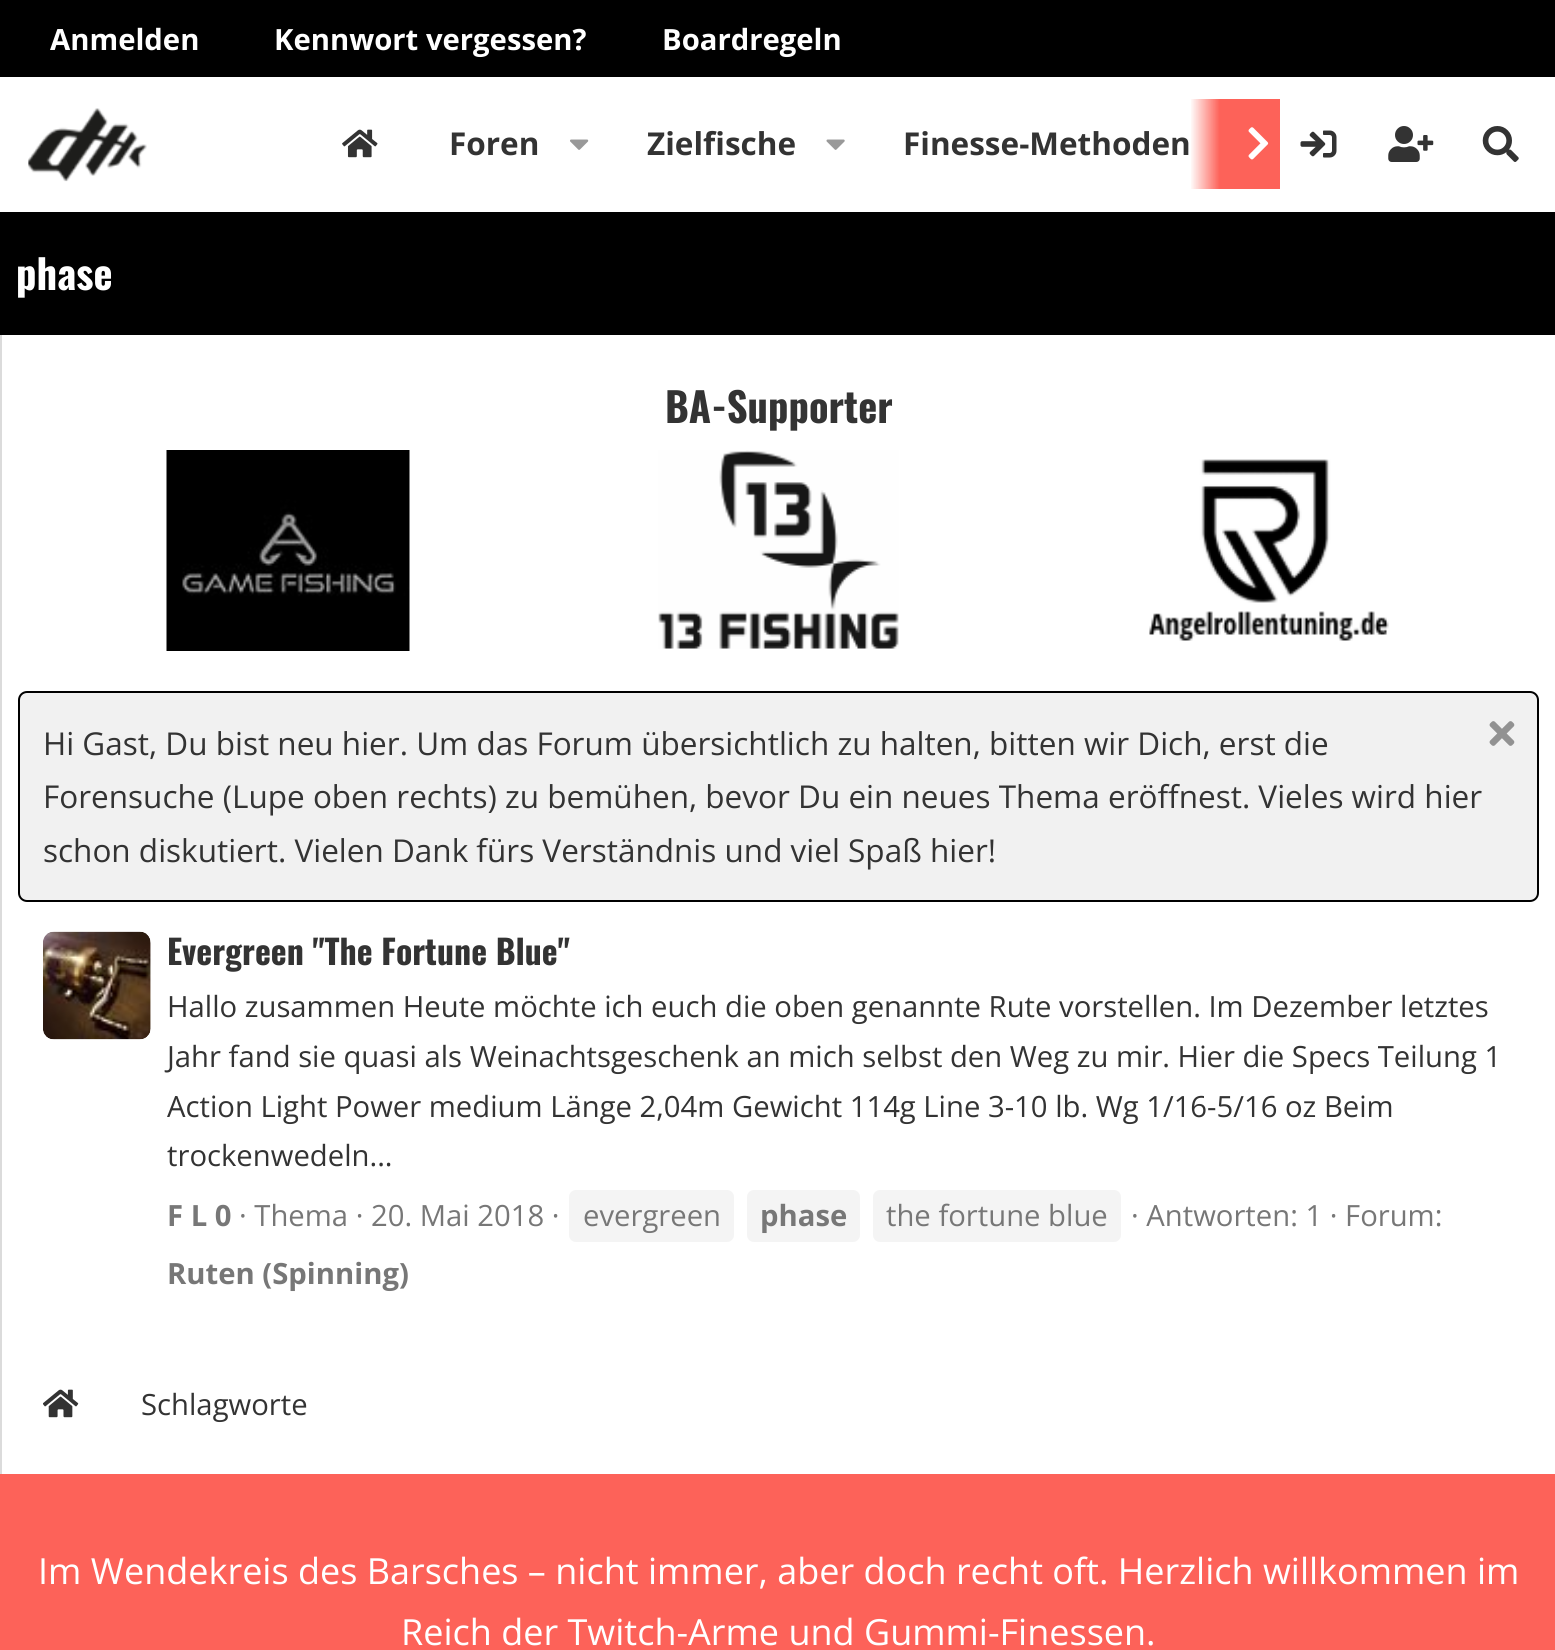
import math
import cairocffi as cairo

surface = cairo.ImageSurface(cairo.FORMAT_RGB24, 1555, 1650)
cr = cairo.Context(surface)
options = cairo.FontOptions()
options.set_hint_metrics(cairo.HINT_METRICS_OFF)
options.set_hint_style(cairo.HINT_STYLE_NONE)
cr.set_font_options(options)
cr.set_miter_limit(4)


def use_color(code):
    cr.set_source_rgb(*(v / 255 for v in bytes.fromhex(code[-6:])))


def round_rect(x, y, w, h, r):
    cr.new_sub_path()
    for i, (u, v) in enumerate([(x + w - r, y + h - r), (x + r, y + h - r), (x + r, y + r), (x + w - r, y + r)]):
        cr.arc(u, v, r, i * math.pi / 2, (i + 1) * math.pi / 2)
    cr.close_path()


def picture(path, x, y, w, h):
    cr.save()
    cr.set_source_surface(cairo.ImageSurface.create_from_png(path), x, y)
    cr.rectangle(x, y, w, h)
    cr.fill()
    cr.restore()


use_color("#ffffff")
cr.paint()
use_color("#000000")
cr.rectangle(0, 0, 1555, 77)
cr.fill()
cr.select_font_face("Open Sans", cairo.FONT_SLANT_NORMAL, cairo.FONT_WEIGHT_BOLD)
cr.set_font_size(29.25)
use_color("#ffffff")
cr.move_to(50, 50)
cr.show_text("Anmelden")
cr.move_to(274, 50)
cr.show_text("Kennwort vergessen?")
cr.move_to(662, 50)
cr.show_text("Boardregeln")
picture("img1.png", 28, 108, 119, 74)
picture("img2.png", 342, 129, 36, 29)
cr.set_font_size(31.5)
use_color("#333333")
cr.move_to(449, 155)
cr.show_text("Foren")
picture("img3.png", 570, 139, 19, 11)
cr.move_to(647, 155)
cr.show_text("Zielfische")
picture("img4.png", 826, 139, 19, 11)
cr.move_to(903, 155)
cr.show_text("Finesse-Methoden")
gradient = cairo.LinearGradient(1190, 144, 1280, 144)
gradient.add_color_stop_rgba(0, 0.992, 0.384, 0.349, 0)
gradient.add_color_stop_rgba(0.33, 0.992, 0.384, 0.349, 1)
cr.set_source(gradient)
cr.rectangle(1191, 99, 89, 90)
cr.fill()
picture("img5.png", 1248, 127, 21, 33)
picture("img6.png", 1300, 130, 37, 28)
picture("img7.png", 1388, 126, 46, 36)
picture("img8.png", 1482, 126, 37, 36)
use_color("#000000")
cr.rectangle(0, 212, 1555, 123)
cr.fill()
cr.select_font_face("Oswald", cairo.FONT_SLANT_NORMAL, cairo.FONT_WEIGHT_BOLD)
cr.set_font_size(40.5)
use_color("#ffffff")
cr.move_to(16, 290)
cr.show_text("phase")
use_color("#dbdbdb")
cr.rectangle(0, 335, 2, 1139)
cr.fill()
use_color("#333333")
cr.move_to(665, 423)
cr.show_text("BA-Supporter")
picture("img9.png", 166, 450, 244, 201)
picture("img10.png", 658, 450, 241, 199)
picture("img11.png", 1149, 459, 240, 182)
use_color("#f1f1f1")
round_rect(19, 692, 1519, 209, 8)
cr.fill_preserve()
use_color("#000000")
cr.stroke()
cr.select_font_face("Open Sans")
cr.set_font_size(31.5)
use_color("#333333")
cr.move_to(43, 755)
cr.show_text("Hi Gast, Du bist neu hier. Um das Forum übersichtlich zu halten, bitten wir Dich, erst die")
picture("img12.png", 1489, 721, 26, 25)
cr.move_to(43, 808)
cr.show_text("Forensuche (Lupe oben rechts) zu bemühen, bevor Du ein neues Thema eröffnest. Vieles wird hier")
cr.move_to(43, 862)
cr.show_text("schon diskutiert. Vielen Dank fürs Verständnis und viel Spaß hier!")
picture("img13.png", 43, 931, 108, 109)
cr.select_font_face("Oswald", cairo.FONT_SLANT_NORMAL, cairo.FONT_WEIGHT_BOLD)
cr.set_font_size(33.75)
cr.move_to(167, 965)
cr.show_text("Evergreen \"The Fortune Blue\"")
cr.select_font_face("Open Sans")
cr.set_font_size(29.25)
cr.move_to(167, 1017)
cr.show_text("Hallo zusammen Heute möchte ich euch die oben genannte Rute vorstellen. Im Dezember letztes")
cr.move_to(167, 1067)
cr.show_text("Jahr fand sie quasi als Weinachtsgeschenk an mich selbst den Weg zu mir. Hier die Specs Teilung 1")
cr.move_to(167, 1117)
cr.show_text("Action Light Power medium Länge 2,04m Gewicht 114g Line 3-10 lb. Wg 1/16-5/16 oz Beim")
cr.move_to(167, 1166)
cr.show_text("trockenwedeln...")
cr.select_font_face("Open Sans", cairo.FONT_SLANT_NORMAL, cairo.FONT_WEIGHT_BOLD)
use_color("#777777")
cr.move_to(167, 1226)
cr.show_text("F L 0")
cr.select_font_face("Open Sans")
cr.move_to(239, 1226)
cr.show_text("· Thema · 20. Mai 2018 ·")
use_color("#f4f4f4")
round_rect(568, 1189, 167, 54, 8)
cr.fill_preserve()
use_color("#ffffff")
cr.stroke()
use_color("#777777")
cr.move_to(583, 1226)
cr.show_text("evergreen")
use_color("#f4f4f4")
round_rect(746, 1189, 115, 54, 8)
cr.fill_preserve()
use_color("#ffffff")
cr.stroke()
cr.select_font_face("Open Sans", cairo.FONT_SLANT_NORMAL, cairo.FONT_WEIGHT_BOLD)
use_color("#777777")
cr.move_to(760, 1226)
cr.show_text("phase")
use_color("#f4f4f4")
round_rect(872, 1189, 250, 54, 8)
cr.fill_preserve()
use_color("#ffffff")
cr.stroke()
cr.select_font_face("Open Sans")
use_color("#777777")
cr.move_to(886, 1226)
cr.show_text("the fortune blue")
cr.move_to(1131, 1226)
cr.show_text("· Antworten: 1 · Forum:")
cr.select_font_face("Open Sans", cairo.FONT_SLANT_NORMAL, cairo.FONT_WEIGHT_BOLD)
cr.move_to(167, 1284)
cr.show_text("Ruten (Spinning)")
picture("img14.png", 43, 1389, 36, 29)
cr.select_font_face("Open Sans")
use_color("#333333")
cr.move_to(141, 1415)
cr.show_text("Schlagworte")
use_color("#fd6259")
cr.rectangle(0, 1474, 1555, 176)
cr.fill()
cr.set_font_size(36)
use_color("#ffffff")
cr.move_to(38, 1584)
cr.show_text("Im Wendekreis des Barsches – nicht immer, aber doch recht oft. Herzlich willkommen im")
cr.move_to(401, 1645)
cr.show_text("Reich der Twitch-Arme und Gummi-Finessen.")
surface.write_to_png("result.png")
